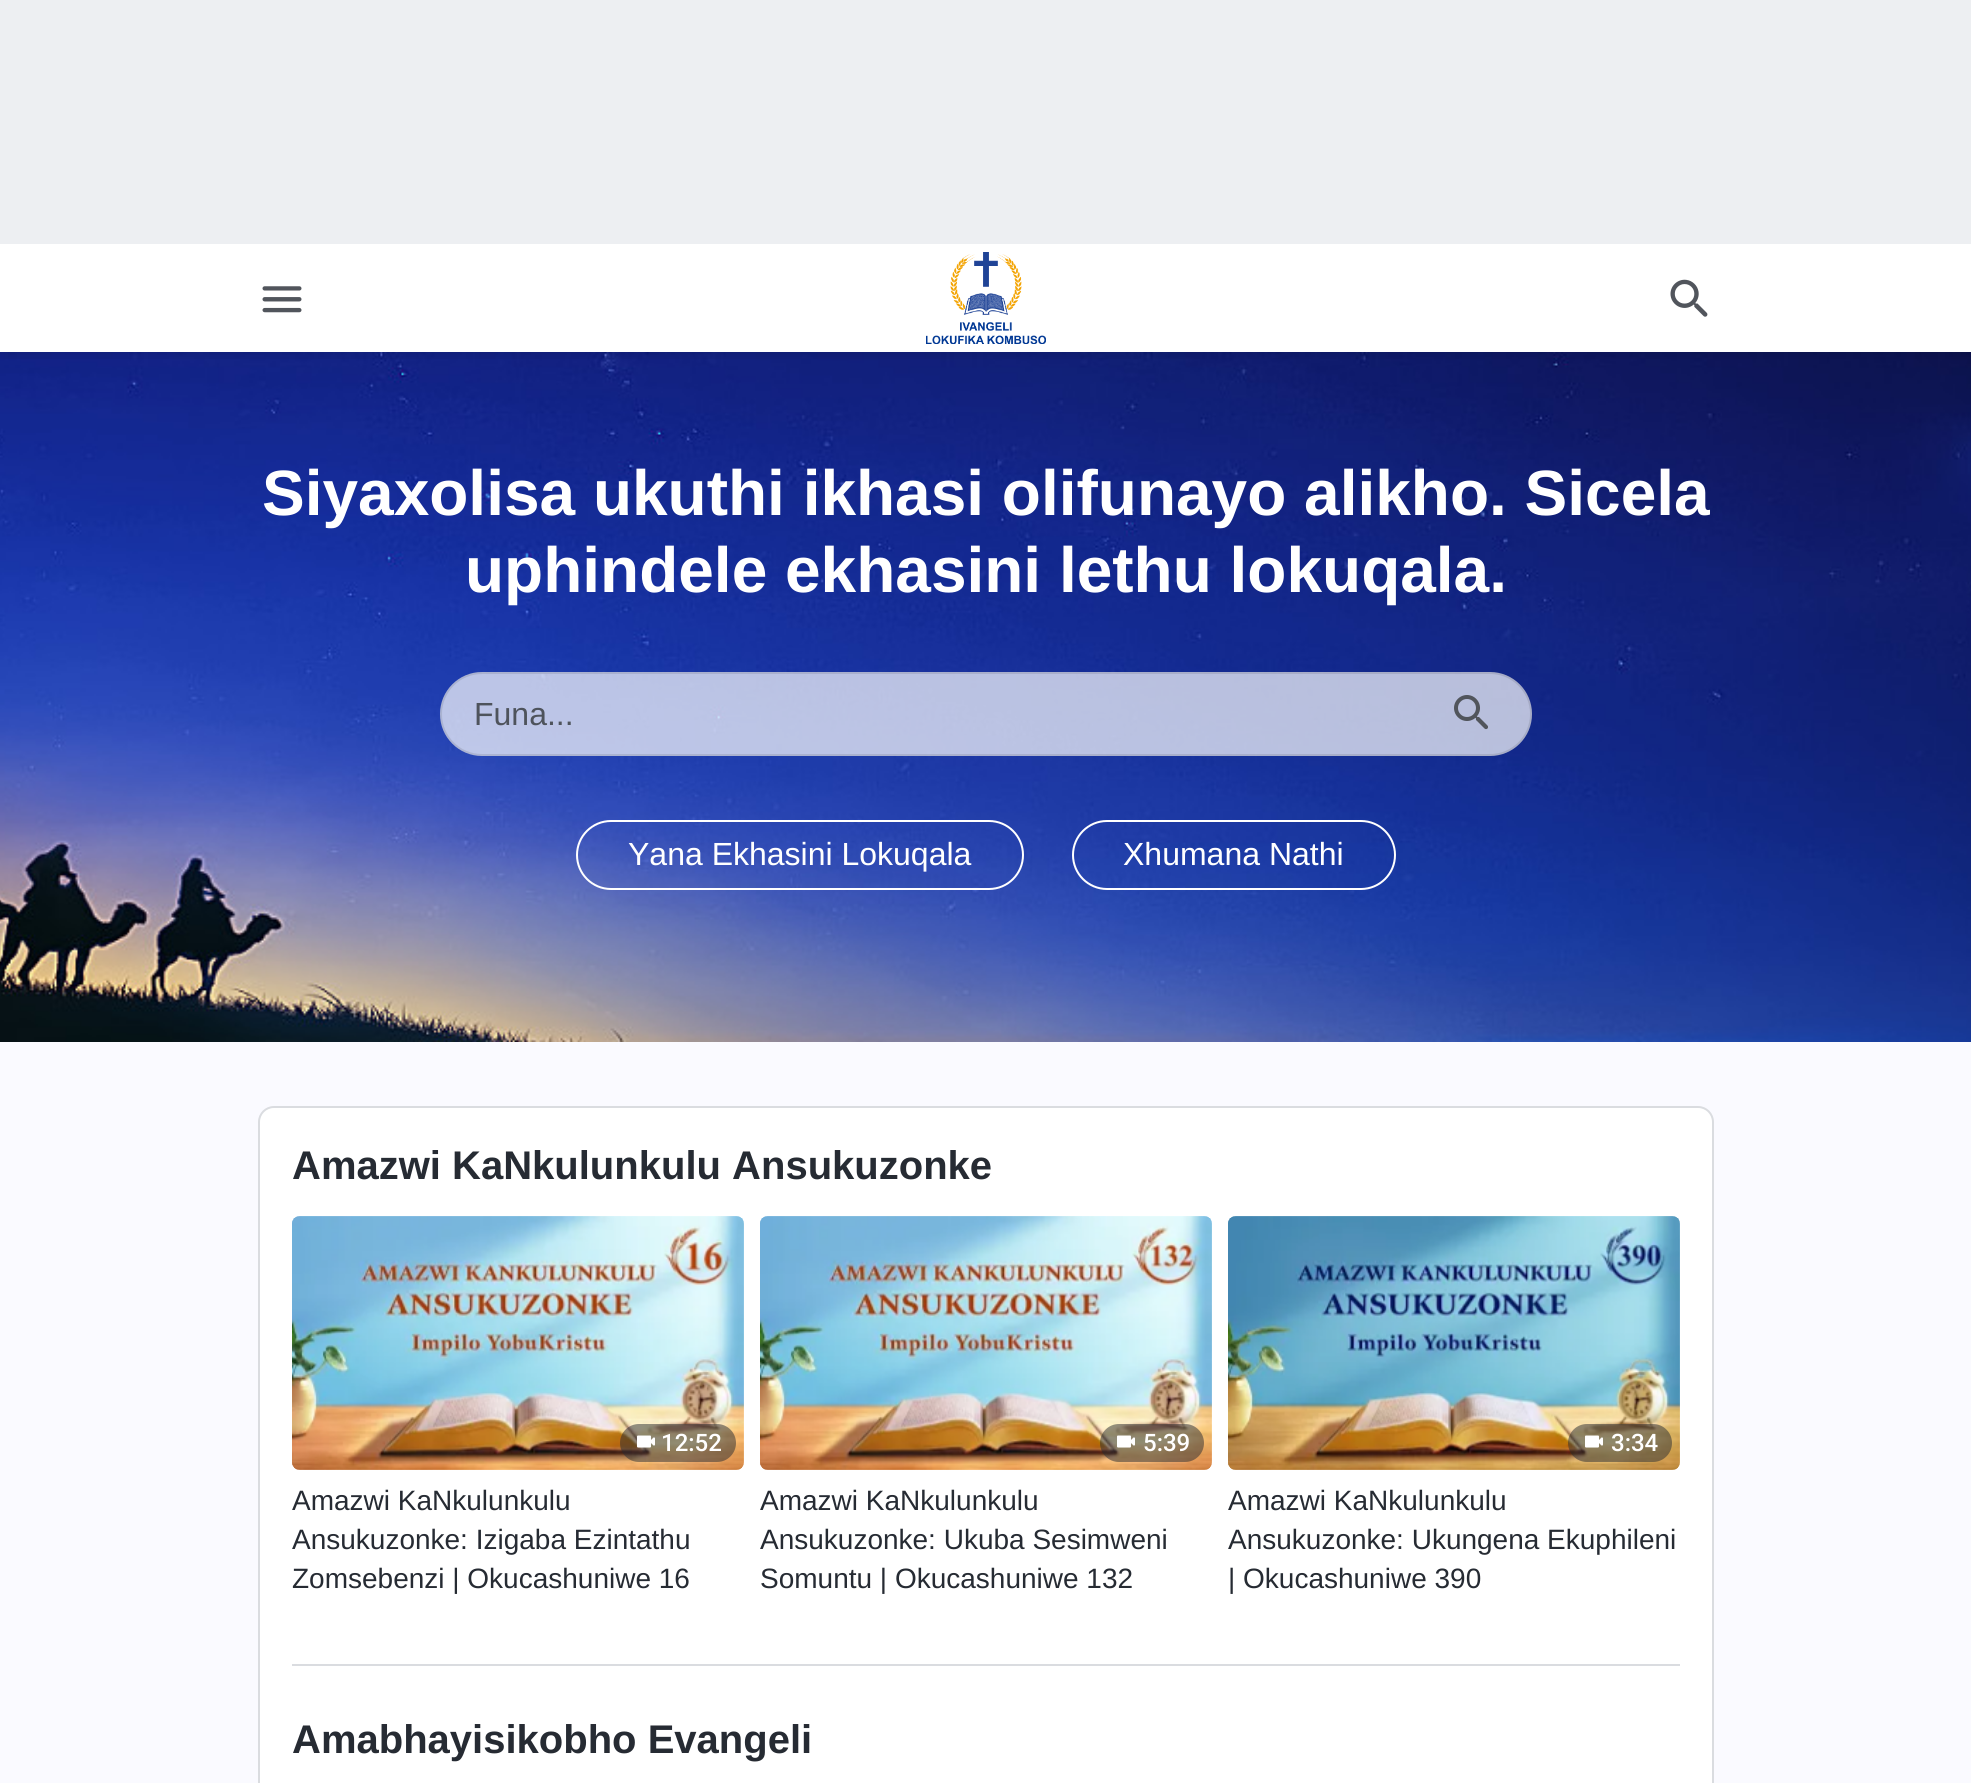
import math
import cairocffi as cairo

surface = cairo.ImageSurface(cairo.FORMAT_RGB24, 1971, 1783)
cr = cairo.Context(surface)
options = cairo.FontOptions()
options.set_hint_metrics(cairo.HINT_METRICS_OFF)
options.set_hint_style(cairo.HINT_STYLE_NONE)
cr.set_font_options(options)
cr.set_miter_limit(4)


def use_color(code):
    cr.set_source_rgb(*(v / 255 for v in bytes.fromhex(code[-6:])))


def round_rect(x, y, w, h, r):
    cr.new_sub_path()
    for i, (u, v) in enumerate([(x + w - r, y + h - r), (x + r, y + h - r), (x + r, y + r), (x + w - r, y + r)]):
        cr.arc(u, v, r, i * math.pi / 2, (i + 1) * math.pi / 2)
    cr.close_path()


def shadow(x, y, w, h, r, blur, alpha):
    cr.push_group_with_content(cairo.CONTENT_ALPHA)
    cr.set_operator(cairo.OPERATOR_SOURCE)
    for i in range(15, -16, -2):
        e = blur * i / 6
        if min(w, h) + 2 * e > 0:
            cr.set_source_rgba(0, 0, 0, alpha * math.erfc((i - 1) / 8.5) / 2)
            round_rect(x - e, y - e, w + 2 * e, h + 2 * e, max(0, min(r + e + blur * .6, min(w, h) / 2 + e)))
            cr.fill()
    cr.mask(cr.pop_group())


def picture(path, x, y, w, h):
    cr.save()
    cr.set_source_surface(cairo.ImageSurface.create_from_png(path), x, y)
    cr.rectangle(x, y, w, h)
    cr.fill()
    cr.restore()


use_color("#fafaff")
cr.paint()
use_color("#ffffff")
cr.rectangle(0, 244, 1971, 108)
cr.fill()
picture("img4.png", 0, 352, 1971, 690)
cr.save()
cr.rectangle(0, 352, 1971, 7)
cr.clip()
use_color("#000000")
shadow(0, 246, 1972, 108, 0, 6, 0.11)
cr.restore()
use_color("#edeff2")
cr.rectangle(0, 0, 1971, 244)
cr.fill()
picture("img1.png", 262, 286, 40, 27)
picture("img2.png", 926, 252, 120, 92)
picture("img3.png", 1670, 279, 38, 38)
cr.select_font_face("Liberation Sans", cairo.FONT_SLANT_NORMAL, cairo.FONT_WEIGHT_BOLD)
cr.set_font_size(64)
use_color("#ffffff")
cr.move_to(262, 515)
cr.show_text("Siyaxolisa ukuthi ikhasi olifunayo alikho. Sicela")
cr.move_to(465, 592)
cr.show_text("uphindele ekhasini lethu lokuqala.")
cr.set_source_rgba(1, 1, 1, 0.7)
round_rect(440, 672, 1092, 84, 42)
cr.fill()
round_rect(441, 673, 1090, 82, 41)
cr.set_source_rgba(0, 0, 0, 0.1)
cr.stroke()
cr.select_font_face("Liberation Sans")
cr.set_font_size(32)
use_color("#4e535c")
cr.move_to(474, 725)
cr.show_text("Funa...")
picture("img5.png", 1454, 695, 34, 35)
round_rect(577, 821, 446, 68, 34)
use_color("#ffffff")
cr.stroke()
cr.move_to(628, 865)
cr.show_text("Yana Ekhasini Lokuqala")
round_rect(1073, 821, 322, 68, 34)
cr.stroke()
cr.move_to(1123, 865)
cr.show_text("Xhumana Nathi")
round_rect(259, 1107, 1454, 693, 15)
cr.fill_preserve()
use_color("#dadce0")
cr.stroke()
cr.select_font_face("Liberation Sans", cairo.FONT_SLANT_NORMAL, cairo.FONT_WEIGHT_BOLD)
cr.set_font_size(40)
use_color("#262b33")
cr.move_to(292, 1179)
cr.show_text("Amazwi KaNkulunkulu Ansukuzonke")
picture("img6.png", 292, 1216, 452, 254)
picture("img7.png", 292, 1216, 452, 254)
cr.set_source_rgba(0.149, 0.169, 0.2, 0.5)
round_rect(620, 1424, 116, 38, 19)
cr.fill()
picture("img8.png", 637, 1435, 18, 13)
cr.select_font_face("Roboto Medium")
cr.set_font_size(24)
use_color("#ffffff")
cr.move_to(661, 1451)
cr.show_text("12:52")
cr.select_font_face("Liberation Sans")
cr.set_font_size(28)
use_color("#262b33")
cr.move_to(292, 1510)
cr.show_text("Amazwi KaNkulunkulu")
cr.move_to(292, 1549)
cr.show_text("Ansukuzonke: Izigaba Ezintathu")
cr.move_to(292, 1588)
cr.show_text("Zomsebenzi | Okucashuniwe 16")
picture("img9.png", 760, 1216, 452, 254)
picture("img10.png", 760, 1216, 452, 254)
cr.set_source_rgba(0.149, 0.169, 0.2, 0.5)
round_rect(1100, 1424, 104, 38, 19)
cr.fill()
picture("img11.png", 1117, 1435, 18, 13)
cr.select_font_face("Roboto Medium")
cr.set_font_size(24)
use_color("#ffffff")
cr.move_to(1143, 1451)
cr.show_text("5:39")
cr.select_font_face("Liberation Sans")
cr.set_font_size(28)
use_color("#262b33")
cr.move_to(760, 1510)
cr.show_text("Amazwi KaNkulunkulu")
cr.move_to(760, 1549)
cr.show_text("Ansukuzonke: Ukuba Sesimweni")
cr.move_to(760, 1588)
cr.show_text("Somuntu | Okucashuniwe 132")
picture("img12.png", 1228, 1216, 452, 254)
picture("img13.png", 1228, 1216, 452, 254)
cr.set_source_rgba(0.149, 0.169, 0.2, 0.5)
round_rect(1568, 1424, 104, 38, 19)
cr.fill()
picture("img14.png", 1585, 1435, 18, 13)
cr.select_font_face("Roboto Medium")
cr.set_font_size(24)
use_color("#ffffff")
cr.move_to(1611, 1451)
cr.show_text("3:34")
cr.select_font_face("Liberation Sans")
cr.set_font_size(28)
use_color("#262b33")
cr.move_to(1228, 1510)
cr.show_text("Amazwi KaNkulunkulu")
cr.move_to(1228, 1549)
cr.show_text("Ansukuzonke: Ukungena Ekuphileni")
cr.move_to(1228, 1588)
cr.show_text("| Okucashuniwe 390")
use_color("#dadce0")
cr.rectangle(292, 1664, 1388, 2)
cr.fill()
cr.select_font_face("Liberation Sans", cairo.FONT_SLANT_NORMAL, cairo.FONT_WEIGHT_BOLD)
cr.set_font_size(40)
use_color("#262b33")
cr.move_to(292, 1753)
cr.show_text("Amabhayisikobho Evangeli")
surface.write_to_png("result.png")
